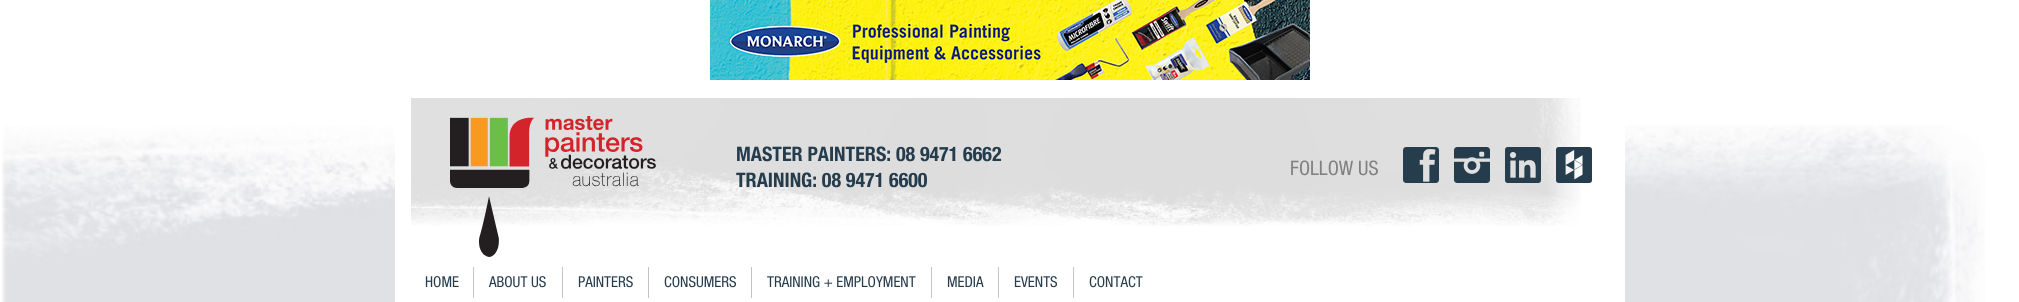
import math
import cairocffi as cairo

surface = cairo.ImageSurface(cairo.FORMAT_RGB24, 2019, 302)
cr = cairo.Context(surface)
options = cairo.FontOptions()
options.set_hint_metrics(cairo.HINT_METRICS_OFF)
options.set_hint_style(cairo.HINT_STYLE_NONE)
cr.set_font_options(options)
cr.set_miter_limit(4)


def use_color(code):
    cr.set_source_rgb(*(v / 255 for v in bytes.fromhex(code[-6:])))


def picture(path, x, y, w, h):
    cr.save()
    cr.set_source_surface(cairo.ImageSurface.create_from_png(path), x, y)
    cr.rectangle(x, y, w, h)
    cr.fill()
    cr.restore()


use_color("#ffffff")
cr.paint()
picture("img1.png", 2, 125, 1983, 177)
use_color("#ffffff")
cr.rectangle(395, 125, 1230, 177)
cr.fill()
picture("img2.png", 710, 0, 600, 80)
picture("img3.png", 411, 98, 1170, 128)
picture("img4.png", 450, 116, 206, 141)
cr.select_font_face("Helvetica Neue", cairo.FONT_SLANT_NORMAL, cairo.FONT_WEIGHT_BOLD)
cr.set_font_size(20)
use_color("#253c4d")
cr.move_to(736, 161)
cr.show_text("MASTER PAINTERS: 08 9471 6662")
cr.move_to(736, 187)
cr.show_text("TRAINING: 08 9471 6600")
cr.select_font_face("Helvetica Neue")
use_color("#808080")
cr.move_to(1290, 175)
cr.show_text("FOLLOW US")
picture("img5.png", 1403, 147, 36, 36)
picture("img6.png", 1454, 147, 36, 36)
picture("img7.png", 1505, 147, 36, 36)
picture("img8.png", 1556, 147, 36, 36)
cr.set_font_size(15)
use_color("#253c4d")
cr.move_to(425, 287)
cr.show_text("HOME")
use_color("#c2c4c6")
cr.rectangle(473, 267, 1, 31)
cr.fill()
use_color("#253c4d")
cr.move_to(489, 287)
cr.show_text("ABOUT US")
use_color("#c2c4c6")
cr.rectangle(562, 267, 1, 31)
cr.fill()
use_color("#253c4d")
cr.move_to(578, 287)
cr.show_text("PAINTERS")
use_color("#c2c4c6")
cr.rectangle(648, 267, 1, 31)
cr.fill()
use_color("#253c4d")
cr.move_to(664, 287)
cr.show_text("CONSUMERS")
use_color("#c2c4c6")
cr.rectangle(751, 267, 1, 31)
cr.fill()
use_color("#253c4d")
cr.move_to(767, 287)
cr.show_text("TRAINING + EMPLOYMENT")
use_color("#c2c4c6")
cr.rectangle(931, 267, 1, 31)
cr.fill()
use_color("#253c4d")
cr.move_to(947, 287)
cr.show_text("MEDIA")
use_color("#c2c4c6")
cr.rectangle(998, 267, 1, 31)
cr.fill()
use_color("#253c4d")
cr.move_to(1014, 287)
cr.show_text("EVENTS")
use_color("#c2c4c6")
cr.rectangle(1073, 267, 1, 31)
cr.fill()
use_color("#253c4d")
cr.move_to(1089, 287)
cr.show_text("CONTACT")
surface.write_to_png("result.png")
